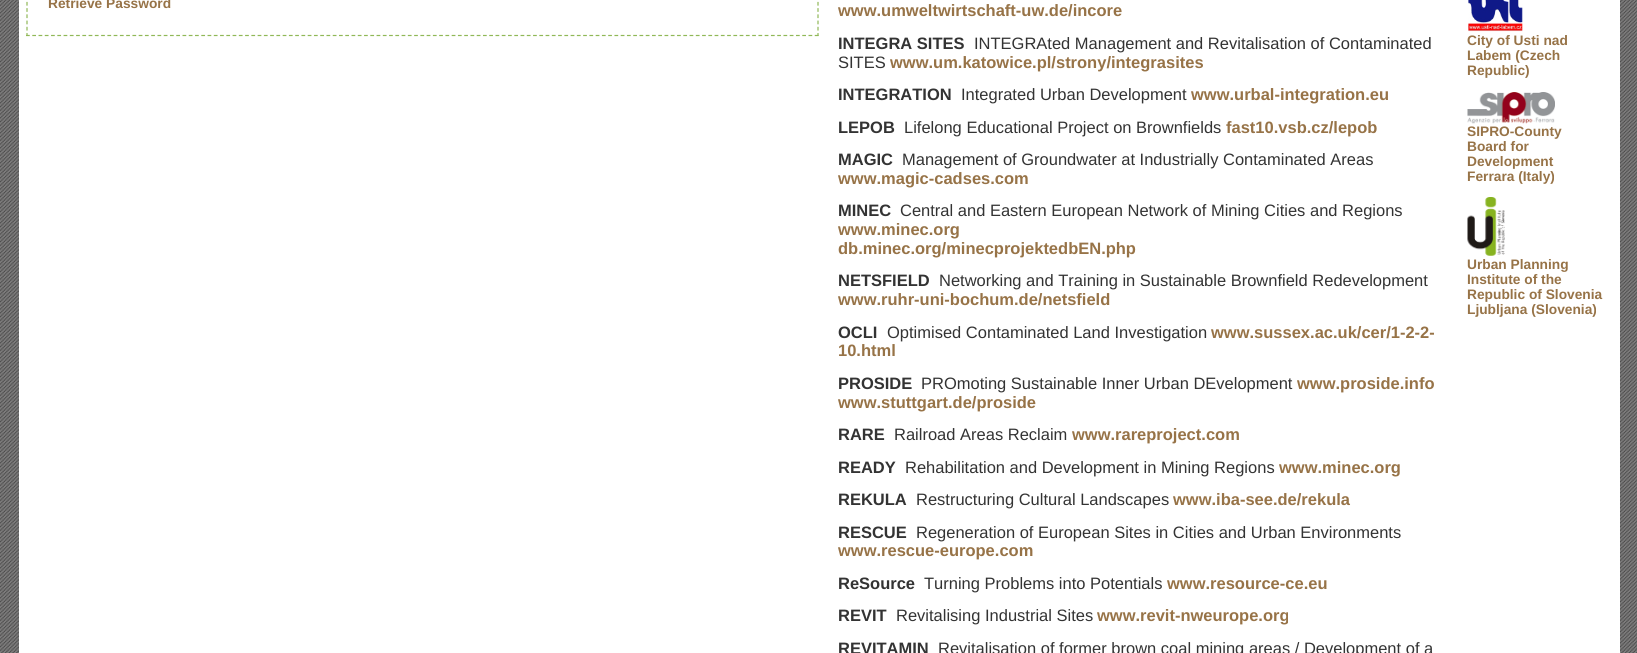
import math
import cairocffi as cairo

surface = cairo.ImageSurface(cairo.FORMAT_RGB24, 1637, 653)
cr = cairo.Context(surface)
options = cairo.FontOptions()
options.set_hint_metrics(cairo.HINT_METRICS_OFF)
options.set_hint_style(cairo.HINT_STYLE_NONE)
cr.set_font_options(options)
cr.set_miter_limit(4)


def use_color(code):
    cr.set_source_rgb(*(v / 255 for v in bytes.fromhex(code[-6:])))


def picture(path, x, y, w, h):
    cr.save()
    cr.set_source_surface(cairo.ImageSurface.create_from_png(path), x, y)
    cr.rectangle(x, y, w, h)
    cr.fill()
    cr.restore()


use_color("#ffffff")
cr.paint()
picture("img1.png", 0, 0, 1637, 653)
use_color("#ffffff")
cr.rectangle(19, 0, 1601, 653)
cr.fill()
cr.new_path()
cr.move_to(818, -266)
cr.line_to(818, 36)
use_color("#90b857")
cr.set_line_width(1.2)
cr.set_dash([3.75, 2.48])
cr.stroke()
cr.new_path()
cr.move_to(26, 35.5)
cr.line_to(819, 35.5)
cr.set_dash([3.75, 2.51])
cr.stroke()
cr.new_path()
cr.move_to(27, -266)
cr.line_to(27, 36)
cr.set_dash([3.75, 2.48])
cr.stroke()
cr.select_font_face("Liberation Sans", cairo.FONT_SLANT_NORMAL, cairo.FONT_WEIGHT_BOLD)
cr.set_font_size(13.75)
use_color("#977347")
cr.move_to(48, 8)
cr.show_text("Retrieve Password")
cr.set_font_size(16.5)
cr.move_to(838, 16)
cr.show_text("www.umweltwirtschaft-uw.de/incore")
use_color("#333333")
cr.move_to(838, 49)
cr.show_text("INTEGRA SITES")
cr.select_font_face("Liberation Sans")
cr.move_to(974, 49)
cr.show_text("INTEGRAted Management and Revitalisation of Contaminated")
cr.move_to(838, 68)
cr.show_text("SITES")
cr.select_font_face("Liberation Sans", cairo.FONT_SLANT_NORMAL, cairo.FONT_WEIGHT_BOLD)
use_color("#977347")
cr.move_to(890, 68)
cr.show_text("www.um.katowice.pl/strony/integrasites")
use_color("#333333")
cr.move_to(838, 100)
cr.show_text("INTEGRATION")
cr.select_font_face("Liberation Sans")
cr.move_to(961, 100)
cr.show_text("Integrated Urban Development")
cr.select_font_face("Liberation Sans", cairo.FONT_SLANT_NORMAL, cairo.FONT_WEIGHT_BOLD)
use_color("#977347")
cr.move_to(1191, 100)
cr.show_text("www.urbal-integration.eu")
use_color("#333333")
cr.move_to(838, 133)
cr.show_text("LEPOB")
cr.select_font_face("Liberation Sans")
cr.move_to(904, 133)
cr.show_text("Lifelong Educational Project on Brownfields")
cr.select_font_face("Liberation Sans", cairo.FONT_SLANT_NORMAL, cairo.FONT_WEIGHT_BOLD)
use_color("#977347")
cr.move_to(1226, 133)
cr.show_text("fast10.vsb.cz/lepob")
use_color("#333333")
cr.move_to(838, 165)
cr.show_text("MAGIC")
cr.select_font_face("Liberation Sans")
cr.move_to(902, 165)
cr.show_text("Management of Groundwater at Industrially Contaminated Areas")
cr.select_font_face("Liberation Sans", cairo.FONT_SLANT_NORMAL, cairo.FONT_WEIGHT_BOLD)
use_color("#977347")
cr.move_to(838, 184)
cr.show_text("www.magic-cadses.com")
use_color("#333333")
cr.move_to(838, 216)
cr.show_text("MINEC")
cr.select_font_face("Liberation Sans")
cr.move_to(900, 216)
cr.show_text("Central and Eastern European Network of Mining Cities and Regions")
cr.select_font_face("Liberation Sans", cairo.FONT_SLANT_NORMAL, cairo.FONT_WEIGHT_BOLD)
use_color("#977347")
cr.move_to(838, 235)
cr.show_text("www.minec.org")
cr.move_to(838, 254)
cr.show_text("db.minec.org/minecprojektedbEN.php")
use_color("#333333")
cr.move_to(838, 286)
cr.show_text("NETSFIELD")
cr.select_font_face("Liberation Sans")
cr.move_to(939, 286)
cr.show_text("Networking and Training in Sustainable Brownfield Redevelopment")
cr.select_font_face("Liberation Sans", cairo.FONT_SLANT_NORMAL, cairo.FONT_WEIGHT_BOLD)
use_color("#977347")
cr.move_to(838, 305)
cr.show_text("www.ruhr-uni-bochum.de/netsfield")
use_color("#333333")
cr.move_to(838, 338)
cr.show_text("OCLI")
cr.select_font_face("Liberation Sans")
cr.move_to(887, 338)
cr.show_text("Optimised Contaminated Land Investigation")
cr.select_font_face("Liberation Sans", cairo.FONT_SLANT_NORMAL, cairo.FONT_WEIGHT_BOLD)
use_color("#977347")
cr.move_to(1211, 338)
cr.show_text("www.sussex.ac.uk/cer/1-2-2-")
cr.move_to(838, 356)
cr.show_text("10.html")
use_color("#333333")
cr.move_to(838, 389)
cr.show_text("PROSIDE")
cr.select_font_face("Liberation Sans")
cr.move_to(921, 389)
cr.show_text("PROmoting Sustainable Inner Urban DEvelopment")
cr.select_font_face("Liberation Sans", cairo.FONT_SLANT_NORMAL, cairo.FONT_WEIGHT_BOLD)
use_color("#977347")
cr.move_to(1297, 389)
cr.show_text("www.proside.info")
cr.move_to(838, 408)
cr.show_text("www.stuttgart.de/proside")
use_color("#333333")
cr.move_to(838, 440)
cr.show_text("RARE")
cr.select_font_face("Liberation Sans")
cr.move_to(894, 440)
cr.show_text("Railroad Areas Reclaim")
cr.select_font_face("Liberation Sans", cairo.FONT_SLANT_NORMAL, cairo.FONT_WEIGHT_BOLD)
use_color("#977347")
cr.move_to(1072, 440)
cr.show_text("www.rareproject.com")
use_color("#333333")
cr.move_to(838, 473)
cr.show_text("READY")
cr.select_font_face("Liberation Sans")
cr.move_to(905, 473)
cr.show_text("Rehabilitation and Development in Mining Regions")
cr.select_font_face("Liberation Sans", cairo.FONT_SLANT_NORMAL, cairo.FONT_WEIGHT_BOLD)
use_color("#977347")
cr.move_to(1279, 473)
cr.show_text("www.minec.org")
use_color("#333333")
cr.move_to(838, 505)
cr.show_text("REKULA")
cr.select_font_face("Liberation Sans")
cr.move_to(916, 505)
cr.show_text("Restructuring Cultural Landscapes")
cr.select_font_face("Liberation Sans", cairo.FONT_SLANT_NORMAL, cairo.FONT_WEIGHT_BOLD)
use_color("#977347")
cr.move_to(1173, 505)
cr.show_text("www.iba-see.de/rekula")
use_color("#333333")
cr.move_to(838, 538)
cr.show_text("RESCUE")
cr.select_font_face("Liberation Sans")
cr.move_to(916, 538)
cr.show_text("Regeneration of European Sites in Cities and Urban Environments")
cr.select_font_face("Liberation Sans", cairo.FONT_SLANT_NORMAL, cairo.FONT_WEIGHT_BOLD)
use_color("#977347")
cr.move_to(838, 556)
cr.show_text("www.rescue-europe.com")
use_color("#333333")
cr.move_to(838, 589)
cr.show_text("ReSource")
cr.select_font_face("Liberation Sans")
cr.move_to(924, 589)
cr.show_text("Turning Problems into Potentials")
cr.select_font_face("Liberation Sans", cairo.FONT_SLANT_NORMAL, cairo.FONT_WEIGHT_BOLD)
use_color("#977347")
cr.move_to(1167, 589)
cr.show_text("www.resource-ce.eu")
use_color("#333333")
cr.move_to(838, 621)
cr.show_text("REVIT")
cr.select_font_face("Liberation Sans")
cr.move_to(896, 621)
cr.show_text("Revitalising Industrial Sites")
cr.select_font_face("Liberation Sans", cairo.FONT_SLANT_NORMAL, cairo.FONT_WEIGHT_BOLD)
use_color("#977347")
cr.move_to(1097, 621)
cr.show_text("www.revit-nweurope.org")
use_color("#333333")
cr.move_to(838, 654)
cr.show_text("REVITAMIN")
cr.select_font_face("Liberation Sans")
cr.move_to(938, 654)
cr.show_text("Revitalisation of former brown coal mining areas / Development of a")
picture("img2.png", 1468, 0, 55, 32)
cr.select_font_face("Liberation Sans", cairo.FONT_SLANT_NORMAL, cairo.FONT_WEIGHT_BOLD)
cr.set_font_size(13.75)
use_color("#977347")
cr.move_to(1467, 45)
cr.show_text("City of Usti nad")
cr.move_to(1467, 60)
cr.show_text("Labem (Czech")
cr.move_to(1467, 75)
cr.show_text("Republic)")
picture("img3.png", 1467, 92, 88, 32)
cr.move_to(1467, 136)
cr.show_text("SIPRO-County")
cr.move_to(1467, 151)
cr.show_text("Board for")
cr.move_to(1467, 166)
cr.show_text("Development")
cr.move_to(1467, 181)
cr.show_text("Ferrara (Italy)")
picture("img4.png", 1467, 197, 38, 59)
cr.move_to(1467, 269)
cr.show_text("Urban Planning")
cr.move_to(1467, 284)
cr.show_text("Institute of the")
cr.move_to(1467, 299)
cr.show_text("Republic of Slovenia")
cr.move_to(1467, 314)
cr.show_text("Ljubljana (Slovenia)")
surface.write_to_png("result.png")
